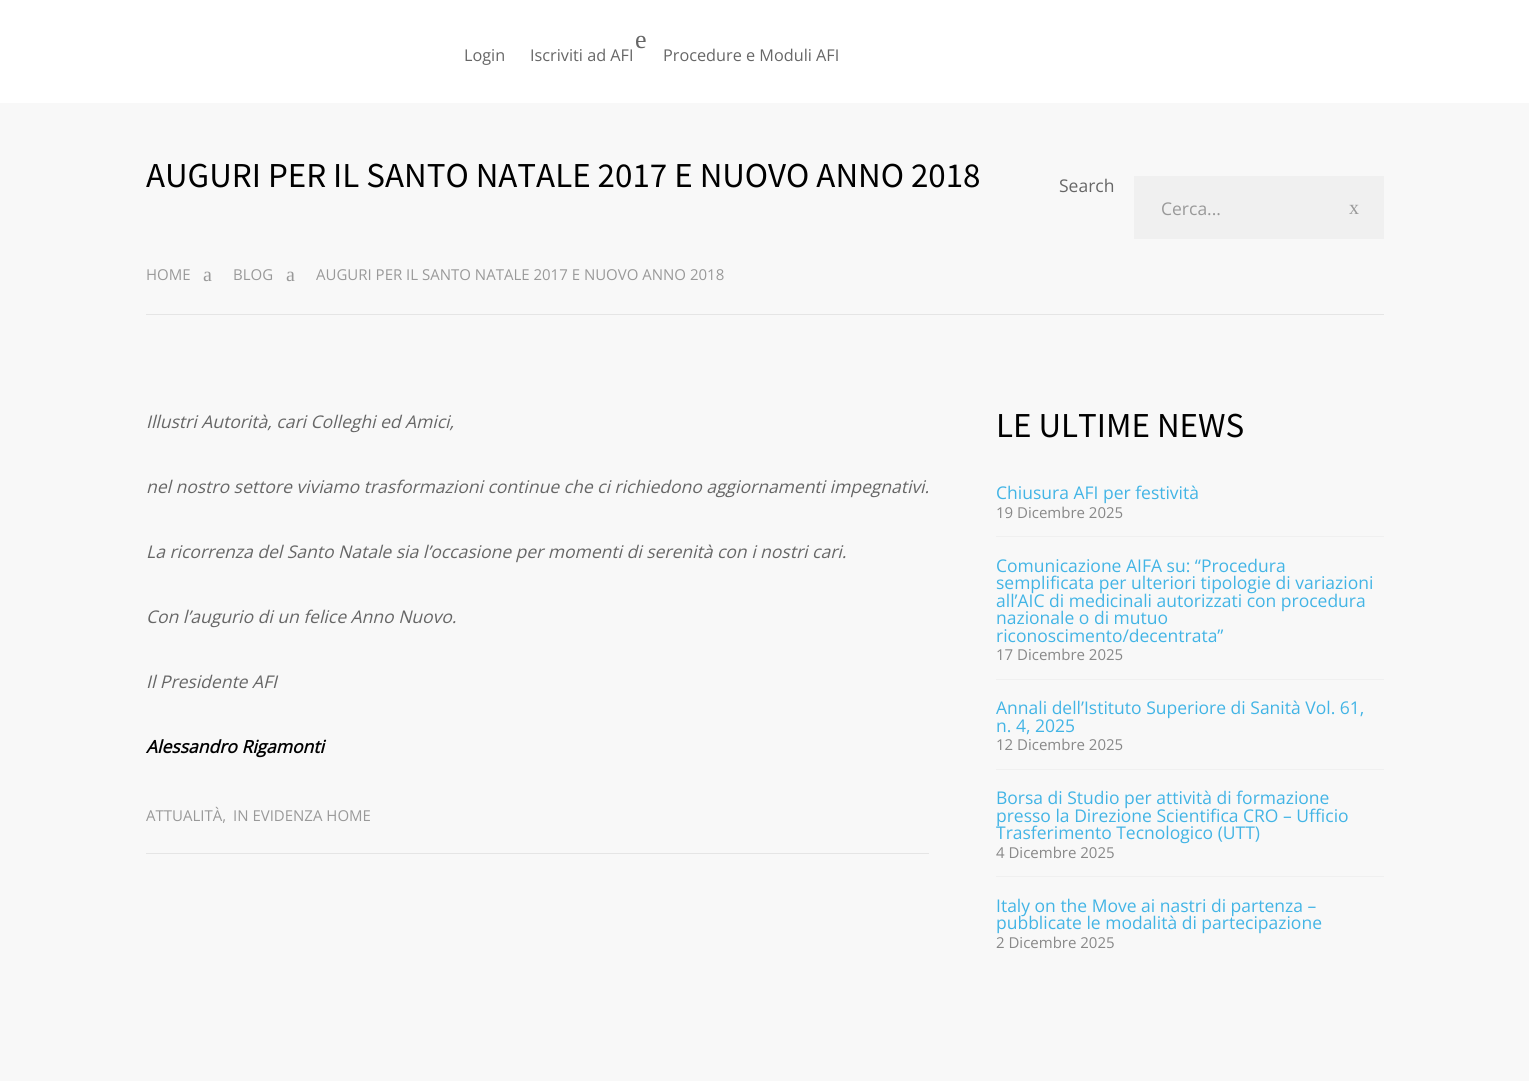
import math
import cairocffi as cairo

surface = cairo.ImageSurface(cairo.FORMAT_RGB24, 1529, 1081)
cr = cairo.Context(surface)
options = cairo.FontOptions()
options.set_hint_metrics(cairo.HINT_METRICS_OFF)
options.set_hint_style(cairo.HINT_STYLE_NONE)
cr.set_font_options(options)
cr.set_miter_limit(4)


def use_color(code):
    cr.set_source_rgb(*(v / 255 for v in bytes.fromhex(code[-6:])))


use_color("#f8f8f8")
cr.paint()
use_color("#ffffff")
cr.rectangle(0, 0, 1529, 103)
cr.fill()
cr.select_font_face("Open Sans")
cr.set_font_size(16.25)
use_color("#666666")
cr.move_to(464, 61)
cr.show_text("Login")
cr.select_font_face("Liberation Serif")
cr.set_font_size(26)
cr.move_to(635, 48)
cr.show_text("e")
cr.select_font_face("Open Sans")
cr.set_font_size(16.25)
cr.move_to(530, 61)
cr.show_text("Iscriviti ad AFI")
cr.move_to(663, 61)
cr.show_text("Procedure e Moduli AFI")
use_color("#e5e5e5")
cr.rectangle(146, 314, 1238, 1)
cr.fill()
cr.select_font_face("Source Sans Pro")
cr.set_font_size(35)
use_color("#000000")
cr.move_to(146, 187)
cr.show_text("AUGURI PER IL SANTO NATALE 2017 E NUOVO ANNO 2018")
cr.select_font_face("Open Sans")
cr.set_font_size(15)
use_color("#999999")
cr.move_to(146, 280)
cr.show_text("HOME")
cr.select_font_face("Liberation Serif")
cr.set_font_size(20)
cr.move_to(203, 281)
cr.show_text("a")
cr.select_font_face("Open Sans")
cr.set_font_size(15)
cr.move_to(233, 280)
cr.show_text("BLOG")
cr.select_font_face("Liberation Serif")
cr.set_font_size(20)
cr.move_to(286, 281)
cr.show_text("a")
cr.select_font_face("Open Sans")
cr.set_font_size(15)
cr.move_to(316, 280)
cr.show_text("AUGURI PER IL SANTO NATALE 2017 E NUOVO ANNO 2018")
cr.set_font_size(17.5)
use_color("#666666")
cr.move_to(1059, 192)
cr.show_text("Search")
use_color("#f0f0f0")
cr.rectangle(1134, 176, 250, 63)
cr.fill()
use_color("#999999")
cr.move_to(1161, 215)
cr.show_text("Cerca...")
cr.select_font_face("Liberation Serif")
cr.set_font_size(20)
cr.move_to(1349, 214)
cr.show_text("x")
use_color("#e5e5e5")
cr.rectangle(146, 853, 783, 1)
cr.fill()
cr.select_font_face("Open Sans", cairo.FONT_SLANT_ITALIC)
cr.set_font_size(17.5)
use_color("#666666")
cr.move_to(146, 428)
cr.show_text("Illustri Autorità, cari Colleghi ed Amici,")
cr.move_to(146, 493)
cr.show_text("nel nostro settore viviamo trasformazioni continue che ci richiedono aggiornamenti impegnativi.")
cr.move_to(146, 558)
cr.show_text("La ricorrenza del Santo Natale sia l’occasione per momenti di serenità con i nostri cari.")
cr.move_to(146, 623)
cr.show_text("Con l’augurio di un felice Anno Nuovo.")
cr.move_to(146, 688)
cr.show_text("Il Presidente AFI")
cr.select_font_face("Open Sans", cairo.FONT_SLANT_ITALIC, cairo.FONT_WEIGHT_BOLD)
use_color("#000000")
cr.move_to(146, 753)
cr.show_text("Alessandro Rigamonti")
cr.select_font_face("Open Sans")
cr.set_font_size(15)
use_color("#999999")
cr.move_to(146, 821)
cr.show_text("ATTUALITÀ,")
cr.move_to(233, 821)
cr.show_text("IN EVIDENZA HOME")
cr.select_font_face("Source Sans Pro")
cr.set_font_size(35)
use_color("#000000")
cr.move_to(996, 437)
cr.show_text("LE ULTIME NEWS")
use_color("#f0f0f0")
cr.rectangle(996, 536, 388, 1)
cr.fill()
cr.select_font_face("Open Sans")
cr.set_font_size(17.5)
use_color("#42b4e5")
cr.move_to(996, 499)
cr.show_text("Chiusura AFI per festività")
cr.set_font_size(15)
use_color("#888888")
cr.move_to(996, 518)
cr.show_text("19 Dicembre 2025")
use_color("#f0f0f0")
cr.rectangle(996, 679, 388, 1)
cr.fill()
cr.set_font_size(17.5)
use_color("#42b4e5")
cr.move_to(996, 572)
cr.show_text("Comunicazione AIFA su: “Procedura")
cr.move_to(996, 589)
cr.show_text("semplificata per ulteriori tipologie di variazioni")
cr.move_to(996, 607)
cr.show_text("all’AIC di medicinali autorizzati con procedura")
cr.move_to(996, 624)
cr.show_text("nazionale o di mutuo")
cr.move_to(996, 642)
cr.show_text("riconoscimento/decentrata”")
cr.set_font_size(15)
use_color("#888888")
cr.move_to(996, 660)
cr.show_text("17 Dicembre 2025")
use_color("#f0f0f0")
cr.rectangle(996, 769, 388, 1)
cr.fill()
cr.set_font_size(17.5)
use_color("#42b4e5")
cr.move_to(996, 714)
cr.show_text("Annali dell’Istituto Superiore di Sanità Vol. 61,")
cr.move_to(996, 732)
cr.show_text("n. 4, 2025")
cr.set_font_size(15)
use_color("#888888")
cr.move_to(996, 750)
cr.show_text("12 Dicembre 2025")
use_color("#f0f0f0")
cr.rectangle(996, 876, 388, 1)
cr.fill()
cr.set_font_size(17.5)
use_color("#42b4e5")
cr.move_to(996, 804)
cr.show_text("Borsa di Studio per attività di formazione")
cr.move_to(996, 822)
cr.show_text("presso la Direzione Scientifica CRO – Ufficio")
cr.move_to(996, 839)
cr.show_text("Trasferimento Tecnologico (UTT)")
cr.set_font_size(15)
use_color("#888888")
cr.move_to(996, 858)
cr.show_text("4 Dicembre 2025")
cr.set_font_size(17.5)
use_color("#42b4e5")
cr.move_to(996, 912)
cr.show_text("Italy on the Move ai nastri di partenza –")
cr.move_to(996, 929)
cr.show_text("pubblicate le modalità di partecipazione")
cr.set_font_size(15)
use_color("#888888")
cr.move_to(996, 948)
cr.show_text("2 Dicembre 2025")
surface.write_to_png("result.png")
